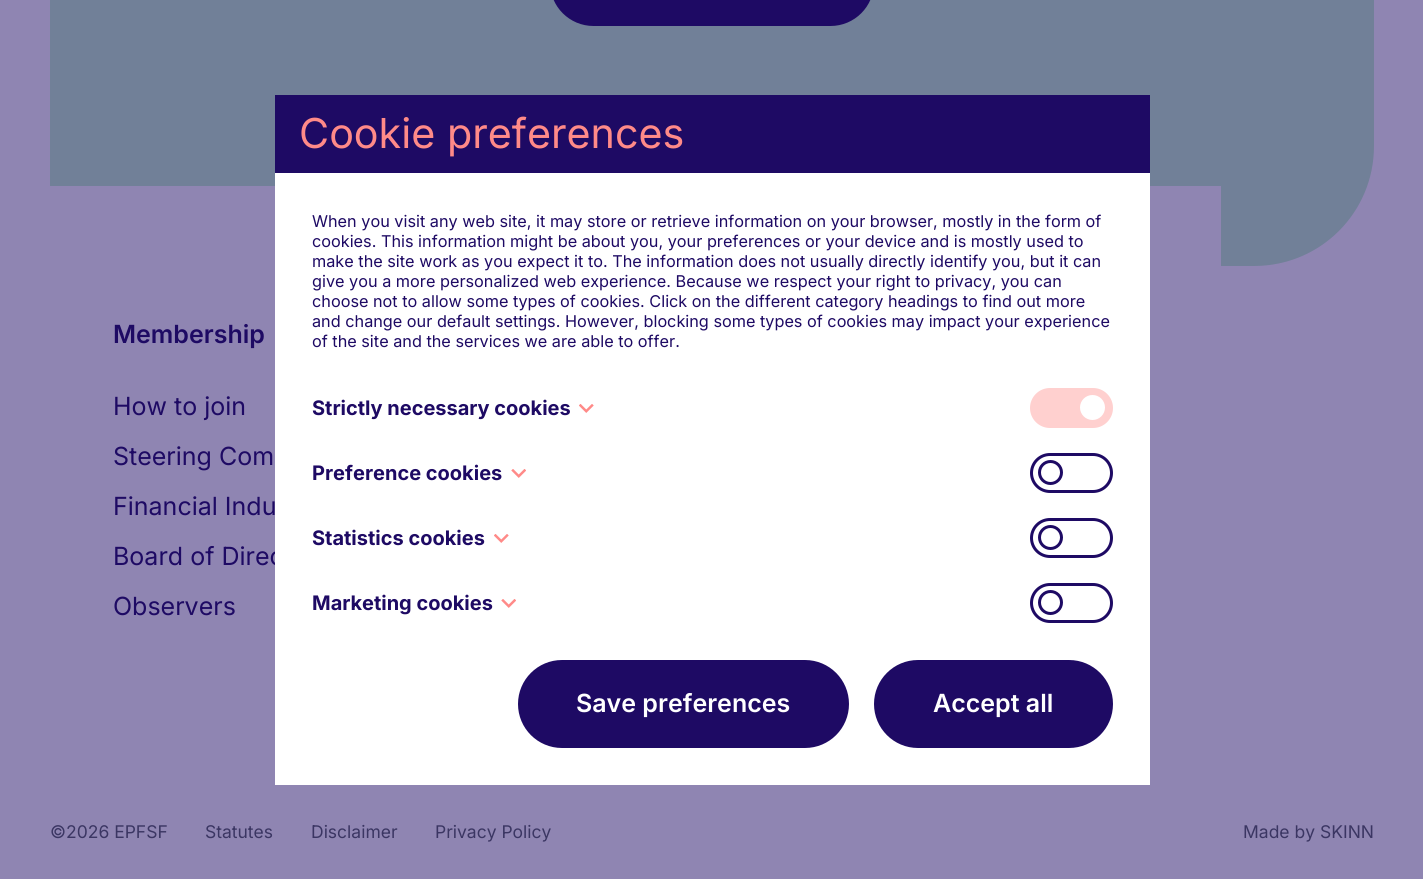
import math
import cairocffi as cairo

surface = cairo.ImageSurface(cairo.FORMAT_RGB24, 1423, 879)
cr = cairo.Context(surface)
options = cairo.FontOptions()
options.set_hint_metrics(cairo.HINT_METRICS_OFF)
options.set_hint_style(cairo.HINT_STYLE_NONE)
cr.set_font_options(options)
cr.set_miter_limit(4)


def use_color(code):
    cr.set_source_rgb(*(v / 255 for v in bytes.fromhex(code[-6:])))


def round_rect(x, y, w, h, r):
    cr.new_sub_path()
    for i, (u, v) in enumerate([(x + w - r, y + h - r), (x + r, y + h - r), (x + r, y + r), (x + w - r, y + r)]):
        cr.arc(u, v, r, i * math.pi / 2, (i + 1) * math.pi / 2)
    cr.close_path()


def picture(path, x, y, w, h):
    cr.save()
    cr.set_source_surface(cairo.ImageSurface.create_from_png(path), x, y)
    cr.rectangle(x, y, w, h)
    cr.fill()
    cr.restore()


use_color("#8f85b2")
cr.paint()
use_color("#718098")
cr.new_path()
cr.move_to(50, -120)
cr.line_to(1374, -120)
cr.line_to(1374, 146)
cr.curve_to(1374, 212.5, 1320.5, 266, 1254, 266)
cr.line_to(50, 266)
cr.close_path()
cr.fill()
use_color("#1e0a64")
round_rect(551.5, -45.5, 321, 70, 42)
cr.fill_preserve()
cr.set_line_width(3)
cr.stroke()
use_color("#8f85b2")
cr.rectangle(50, 186, 1171, 80)
cr.fill()
cr.select_font_face("Inter SemiBold")
cr.set_font_size(25)
use_color("#1e0a64")
cr.move_to(113, 343)
cr.show_text("Membership")
cr.select_font_face("Inter")
cr.move_to(113, 415)
cr.show_text("How to join")
cr.move_to(113, 465)
cr.show_text("Steering Com")
cr.move_to(113, 515)
cr.show_text("Financial Indu")
cr.move_to(113, 565)
cr.show_text("Board of Direc")
cr.move_to(113, 615)
cr.show_text("Observers")
use_color("#ffffff")
cr.rectangle(275, 173, 875, 612)
cr.fill()
use_color("#1e0a64")
cr.rectangle(275, 95, 875, 78)
cr.fill()
cr.set_font_size(41.25)
use_color("#ff8a88")
cr.move_to(299, 148)
cr.show_text("Cookie preferences")
cr.set_font_size(16.25)
use_color("#1e0a64")
cr.move_to(312, 227)
cr.show_text("When you visit any web site, it may store or retrieve information on your browser, mostly in the form of")
cr.move_to(312, 247)
cr.show_text("cookies. This information might be about you, your preferences or your device and is mostly used to")
cr.move_to(312, 267)
cr.show_text("make the site work as you expect it to. The information does not usually directly identify you, but it can")
cr.move_to(312, 287)
cr.show_text("give you a more personalized web experience. Because we respect your right to privacy, you can")
cr.move_to(312, 307)
cr.show_text("choose not to allow some types of cookies. Click on the different category headings to find out more")
cr.move_to(312, 327)
cr.show_text("and change our default settings. However, blocking some types of cookies may impact your experience")
cr.move_to(312, 347)
cr.show_text("of the site and the services we are able to offer.")
cr.select_font_face("Inter", cairo.FONT_SLANT_NORMAL, cairo.FONT_WEIGHT_BOLD)
cr.set_font_size(20)
cr.move_to(312, 415)
cr.show_text("Strictly necessary cookies")
picture("img1.png", 579, 404, 15, 9)
use_color("#ffd0cf")
round_rect(1031.5, 389.5, 80, 37, 18.5)
cr.fill_preserve()
cr.stroke()
use_color("#ffffff")
cr.arc(1092.5, 407.5, 11, 0, 2 * math.pi)
cr.fill_preserve()
cr.stroke()
use_color("#1e0a64")
cr.move_to(312, 480)
cr.show_text("Preference cookies")
picture("img2.png", 511, 469, 15, 9)
round_rect(1031.5, 454.5, 80, 37, 18.5)
cr.stroke()
cr.arc(1050.5, 472.5, 11, 0, 2 * math.pi)
cr.stroke()
cr.move_to(312, 545)
cr.show_text("Statistics cookies")
picture("img1.png", 494, 534, 15, 9)
round_rect(1031.5, 519.5, 80, 37, 18.5)
cr.stroke()
cr.arc(1050.5, 537.5, 11, 0, 2 * math.pi)
cr.stroke()
cr.move_to(312, 610)
cr.show_text("Marketing cookies")
picture("img2.png", 501, 599, 15, 9)
round_rect(1031.5, 584.5, 80, 37, 18.5)
cr.stroke()
cr.arc(1050.5, 602.5, 11, 0, 2 * math.pi)
cr.stroke()
round_rect(519.5, 661.5, 328, 85, 42.5)
cr.fill_preserve()
cr.stroke()
cr.select_font_face("Inter SemiBold")
cr.set_font_size(25)
use_color("#ffffff")
cr.move_to(576, 712)
cr.show_text("Save preferences")
use_color("#1e0a64")
round_rect(875.5, 661.5, 236, 85, 42.5)
cr.fill_preserve()
cr.stroke()
use_color("#ffffff")
cr.move_to(933, 712)
cr.show_text("Accept all")
cr.select_font_face("Inter")
cr.set_font_size(17.5)
use_color("#3b3663")
cr.move_to(50, 838)
cr.show_text("©2026 EPFSF")
cr.move_to(205, 838)
cr.show_text("Statutes")
cr.move_to(311, 838)
cr.show_text("Disclaimer")
cr.move_to(435, 838)
cr.show_text("Privacy Policy")
cr.move_to(1243, 838)
cr.show_text("Made by SKINN")
surface.write_to_png("result.png")
